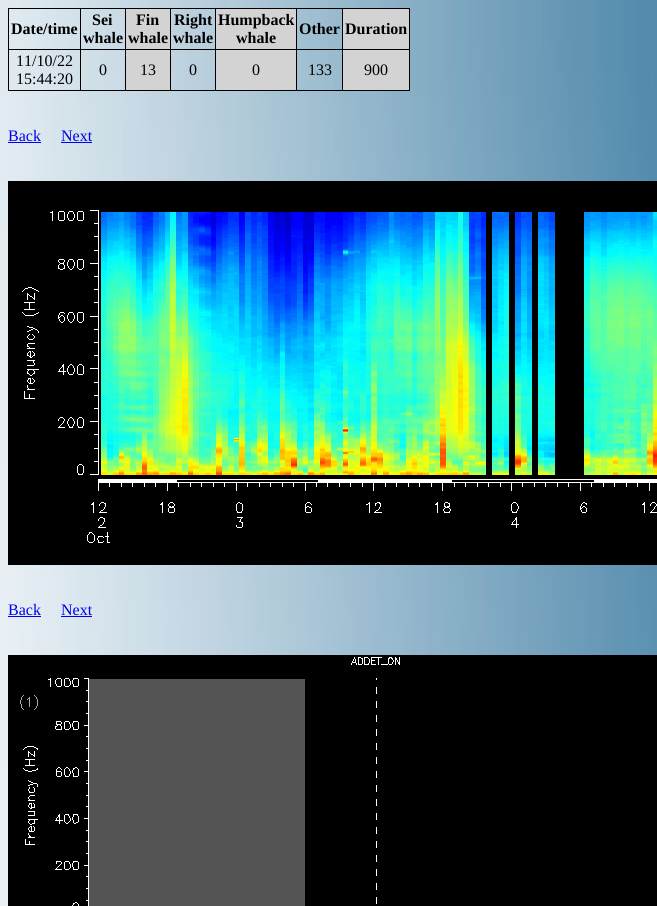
import math
import cairocffi as cairo

surface = cairo.ImageSurface(cairo.FORMAT_RGB24, 657, 906)
cr = cairo.Context(surface)
options = cairo.FontOptions()
options.set_hint_metrics(cairo.HINT_METRICS_OFF)
options.set_hint_style(cairo.HINT_STYLE_NONE)
cr.set_font_options(options)
cr.set_miter_limit(4)


def use_color(code):
    cr.set_source_rgb(*(v / 255 for v in bytes.fromhex(code[-6:])))


def picture(path, x, y, w, h):
    cr.save()
    cr.set_source_surface(cairo.ImageSurface.create_from_png(path), x, y)
    cr.rectangle(x, y, w, h)
    cr.fill()
    cr.restore()


use_color("#ffffff")
cr.paint()
picture("img1.png", 0, 0, 657, 906)
use_color("#000000")
cr.rectangle(8, 8, 402, 1)
cr.fill()
cr.rectangle(409, 8, 1, 83)
cr.fill()
cr.rectangle(8, 90, 402, 1)
cr.fill()
cr.rectangle(8, 8, 1, 83)
cr.fill()
cr.select_font_face("Liberation Serif", cairo.FONT_SLANT_NORMAL, cairo.FONT_WEIGHT_BOLD)
cr.set_font_size(16)
cr.move_to(11, 34)
cr.show_text("Date/time")
cr.rectangle(342, 49, 68, 1)
cr.fill()
cr.rectangle(342, 49, 1, 42)
cr.fill()
cr.rectangle(296, 49, 47, 1)
cr.fill()
cr.rectangle(296, 49, 1, 42)
cr.fill()
cr.rectangle(215, 49, 82, 1)
cr.fill()
cr.rectangle(215, 49, 1, 42)
cr.fill()
cr.rectangle(170, 49, 46, 1)
cr.fill()
cr.rectangle(170, 49, 1, 42)
cr.fill()
cr.rectangle(125, 49, 46, 1)
cr.fill()
cr.rectangle(125, 49, 1, 42)
cr.fill()
cr.rectangle(80, 49, 46, 1)
cr.fill()
cr.rectangle(80, 49, 1, 42)
cr.fill()
cr.rectangle(8, 49, 73, 1)
cr.fill()
cr.rectangle(80, 8, 1, 42)
cr.fill()
cr.move_to(92, 25)
cr.show_text("Sei")
cr.move_to(83, 43)
cr.show_text("whale")
use_color("#d3d3d3")
cr.rectangle(126, 9, 44, 40)
cr.fill()
use_color("#000000")
cr.rectangle(125, 8, 1, 42)
cr.fill()
cr.move_to(136, 25)
cr.show_text("Fin")
cr.move_to(128, 43)
cr.show_text("whale")
cr.rectangle(170, 8, 1, 42)
cr.fill()
cr.move_to(174, 25)
cr.show_text("Right")
cr.move_to(173, 43)
cr.show_text("whale")
use_color("#d3d3d3")
cr.rectangle(216, 9, 80, 40)
cr.fill()
use_color("#000000")
cr.rectangle(215, 8, 1, 42)
cr.fill()
cr.move_to(218, 25)
cr.show_text("Humpback")
cr.move_to(236, 43)
cr.show_text("whale")
cr.rectangle(296, 8, 1, 42)
cr.fill()
cr.move_to(299, 34)
cr.show_text("Other")
use_color("#d3d3d3")
cr.rectangle(343, 9, 66, 40)
cr.fill()
use_color("#000000")
cr.rectangle(342, 8, 1, 42)
cr.fill()
cr.move_to(345, 34)
cr.show_text("Duration")
cr.select_font_face("Liberation Serif")
cr.move_to(16, 66)
cr.show_text("11/10/22")
cr.move_to(16, 84)
cr.show_text("15:44:20")
cr.move_to(99, 75)
cr.show_text("0")
use_color("#d3d3d3")
cr.rectangle(126, 50, 44, 40)
cr.fill()
use_color("#000000")
cr.move_to(140, 75)
cr.show_text("13")
cr.move_to(189, 75)
cr.show_text("0")
use_color("#d3d3d3")
cr.rectangle(216, 50, 80, 40)
cr.fill()
use_color("#000000")
cr.move_to(252, 75)
cr.show_text("0")
cr.move_to(308, 75)
cr.show_text("133")
use_color("#d3d3d3")
cr.rectangle(343, 50, 66, 40)
cr.fill()
use_color("#000000")
cr.move_to(364, 75)
cr.show_text("900")
use_color("#0000ee")
cr.move_to(8, 141)
cr.show_text("Back")
cr.rectangle(8, 142, 33, 1)
cr.fill()
cr.move_to(61, 141)
cr.show_text("Next")
cr.rectangle(61, 142, 31, 1)
cr.fill()
picture("img2.png", 8, 181, 649, 384)
cr.move_to(8, 615)
cr.show_text("Back")
cr.rectangle(8, 616, 33, 1)
cr.fill()
cr.move_to(61, 615)
cr.show_text("Next")
cr.rectangle(61, 616, 31, 1)
cr.fill()
picture("img3.png", 8, 655, 649, 251)
surface.write_to_png("result.png")
